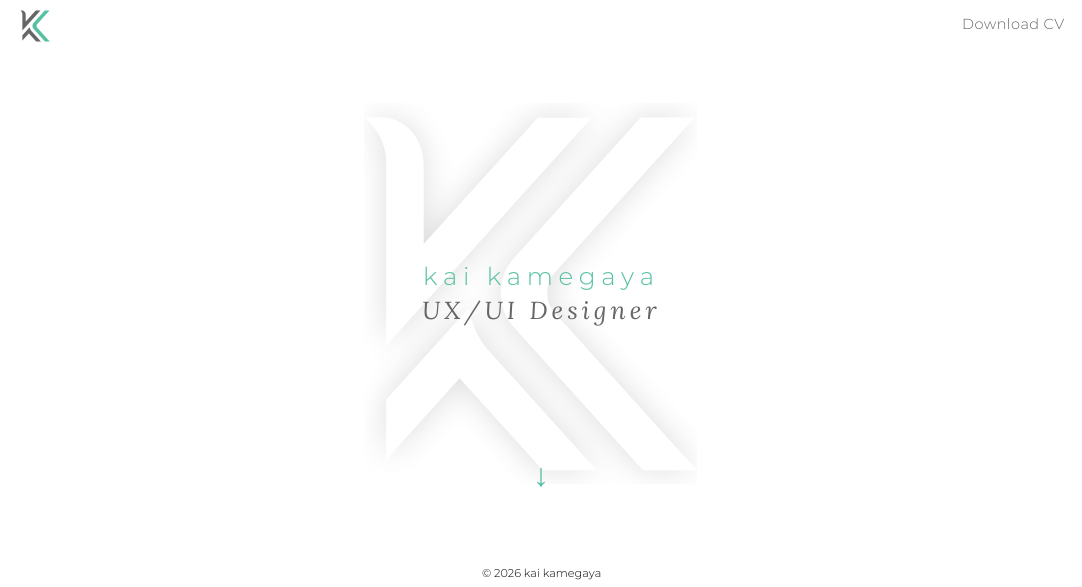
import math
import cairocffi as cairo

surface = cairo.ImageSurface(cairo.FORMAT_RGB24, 1082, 587)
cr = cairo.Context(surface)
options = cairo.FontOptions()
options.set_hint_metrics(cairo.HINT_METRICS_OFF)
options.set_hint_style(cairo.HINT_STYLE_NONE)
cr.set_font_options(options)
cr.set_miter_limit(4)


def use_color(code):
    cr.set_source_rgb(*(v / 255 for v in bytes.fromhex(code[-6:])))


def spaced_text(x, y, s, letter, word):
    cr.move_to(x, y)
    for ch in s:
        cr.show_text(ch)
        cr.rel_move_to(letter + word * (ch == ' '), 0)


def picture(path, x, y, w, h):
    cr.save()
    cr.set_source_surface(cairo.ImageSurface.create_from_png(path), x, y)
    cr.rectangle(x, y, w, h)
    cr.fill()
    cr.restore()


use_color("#ffffff")
cr.paint()
picture("img1.png", 20, 10, 30, 32)
cr.select_font_face("Montserrat Light")
cr.set_font_size(14.5)
use_color("#666666")
spaced_text(962, 29, "Download CV", 0.4, 0)
picture("img2.png", 364, 103, 333, 381)
cr.set_font_size(24.6)
use_color("#57c0a3")
spaced_text(423, 285, "kai kamegaya", 5.6, 0)
cr.select_font_face("Lora", cairo.FONT_SLANT_ITALIC)
use_color("#666666")
spaced_text(422, 319, "UX/UI Designer", 4, 0)
cr.select_font_face("Liberation Serif")
cr.set_font_size(32)
use_color("#57c0a3")
cr.move_to(533, 486)
cr.show_text("↓")
cr.select_font_face("Montserrat Light")
cr.set_font_size(11.25)
use_color("#000000")
cr.move_to(482, 577)
cr.show_text("© 2026 kai kamegaya")
surface.write_to_png("result.png")
